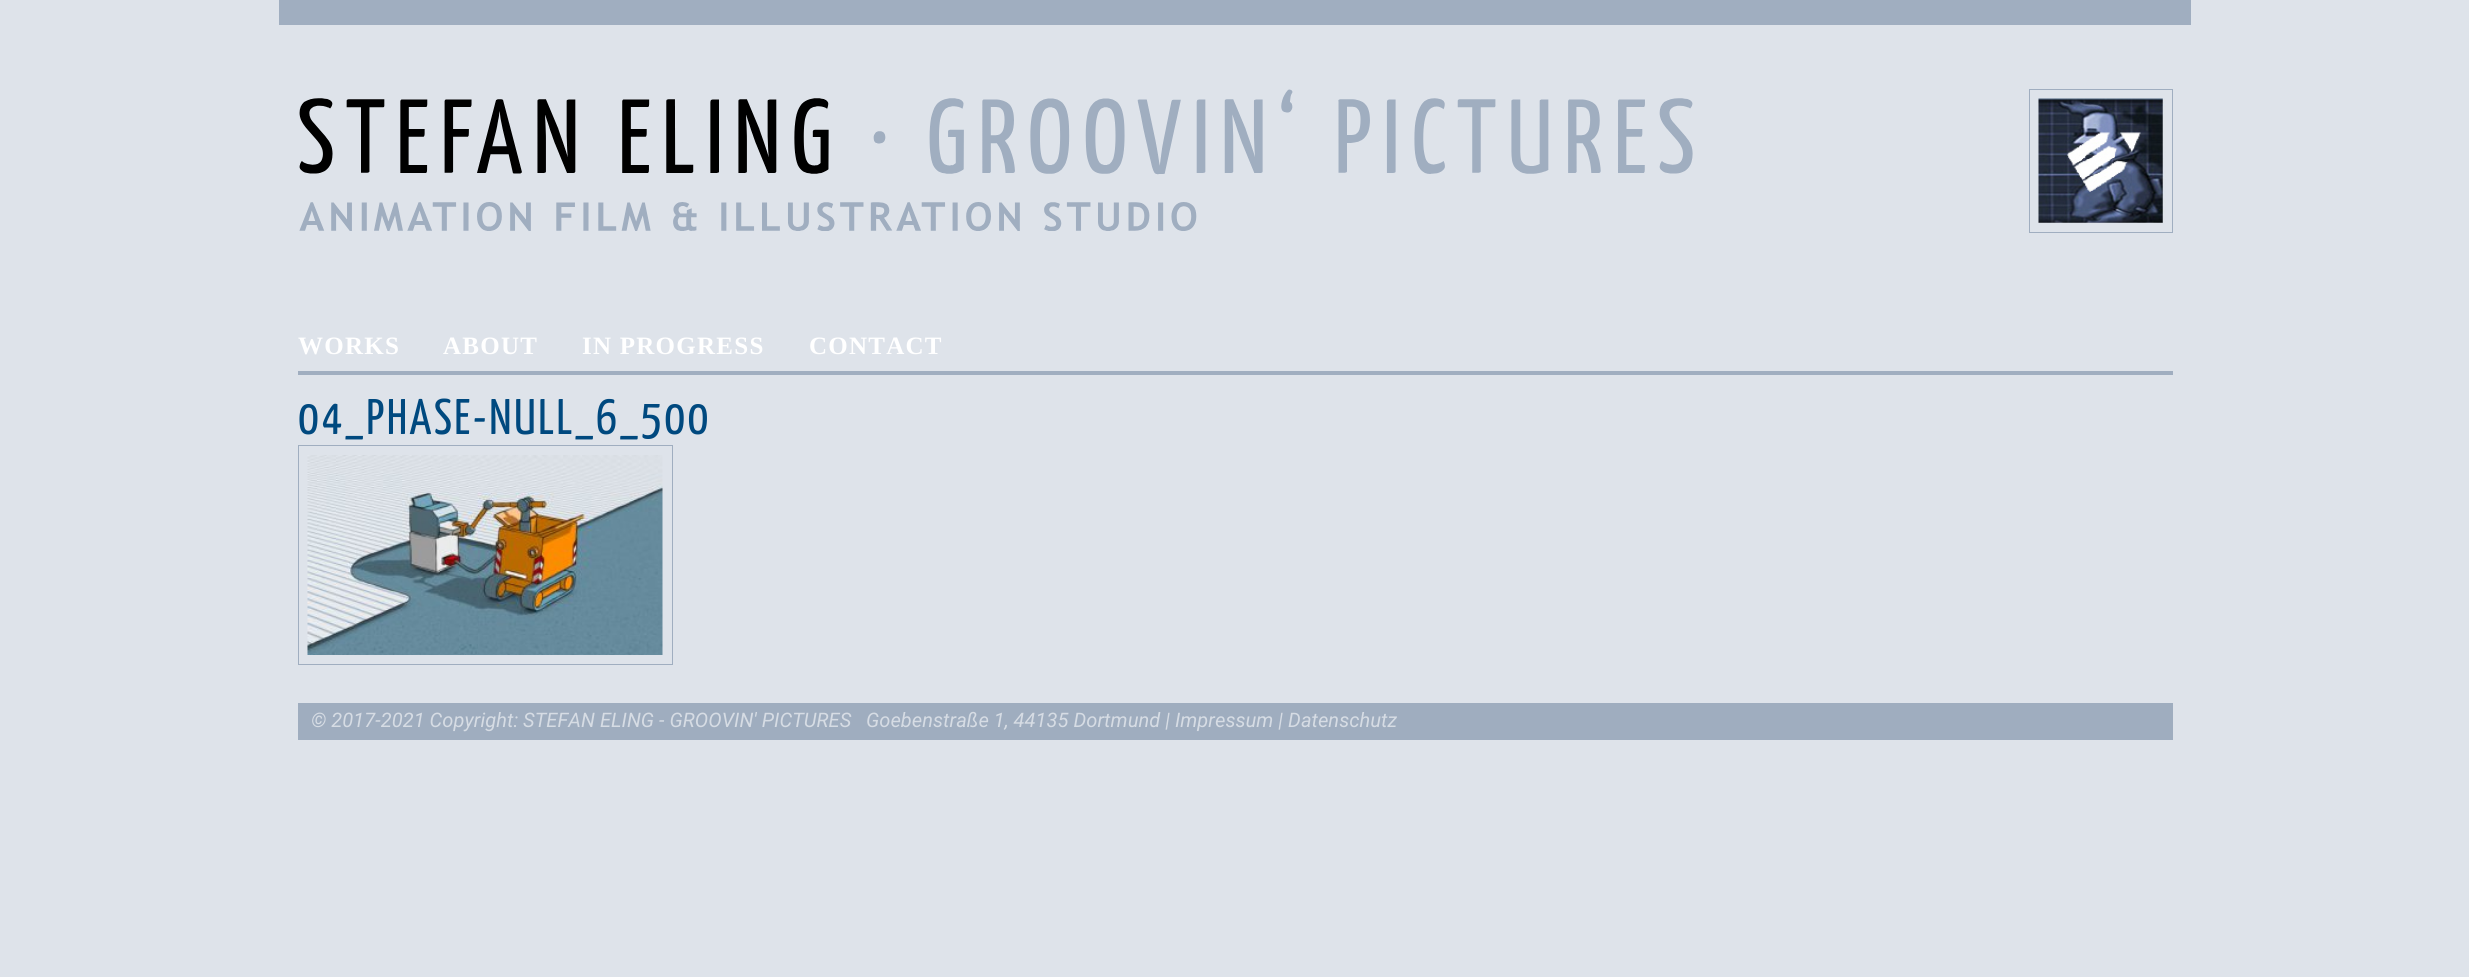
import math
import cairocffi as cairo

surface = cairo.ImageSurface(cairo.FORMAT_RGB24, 2469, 977)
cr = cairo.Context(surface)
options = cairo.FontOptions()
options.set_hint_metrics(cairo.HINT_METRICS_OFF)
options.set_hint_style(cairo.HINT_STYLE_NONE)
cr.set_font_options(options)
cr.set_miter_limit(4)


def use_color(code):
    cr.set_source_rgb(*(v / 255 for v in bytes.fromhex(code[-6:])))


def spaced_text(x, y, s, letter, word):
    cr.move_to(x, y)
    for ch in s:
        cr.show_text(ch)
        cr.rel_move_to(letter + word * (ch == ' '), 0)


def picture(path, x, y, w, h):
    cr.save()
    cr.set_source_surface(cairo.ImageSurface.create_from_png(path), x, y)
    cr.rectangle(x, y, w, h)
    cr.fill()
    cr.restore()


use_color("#dee3ea")
cr.paint()
use_color("#a0aec0")
cr.rectangle(279, 0, 1912, 25)
cr.fill()
picture("img1.png", 299, 89, 1394, 142)
cr.rectangle(2029.5, 89.5, 143, 143)
cr.set_line_width(1)
cr.stroke()
picture("img2.png", 2038, 98, 128, 125)
cr.rectangle(298, 371, 1875, 4)
cr.fill()
cr.select_font_face("Liberation Serif", cairo.FONT_SLANT_NORMAL, cairo.FONT_WEIGHT_BOLD)
cr.set_font_size(25)
use_color("#ffffff")
spaced_text(298, 354, "WORKS", 1.25, 0)
spaced_text(443, 354, "ABOUT", 1.25, 0)
spaced_text(582, 354, "IN PROGRESS", 1.25, 0)
spaced_text(809, 354, "CONTACT", 1.25, 0)
cr.select_font_face("Yanone Kaffeesatz ExtraLight")
cr.set_font_size(50)
use_color("#00497f")
spaced_text(298, 434, "04_PHASE-NULL_6_500", 2.5, 0)
cr.rectangle(298.5, 445.5, 374, 219)
use_color("#a0aec0")
cr.stroke()
picture("img3.png", 307, 455, 356, 200)
use_color("#9fadbf")
cr.rectangle(298, 703, 1875, 37)
cr.fill()
cr.select_font_face("Roboto", cairo.FONT_SLANT_ITALIC)
cr.set_font_size(20)
use_color("#d6dce4")
cr.move_to(311, 727)
cr.show_text("© 2017-2021 Copyright: STEFAN ELING - GROOVIN' PICTURES   Goebenstraße 1, 44135 Dortmund | Impressum | Datenschutz")
surface.write_to_png("result.png")
